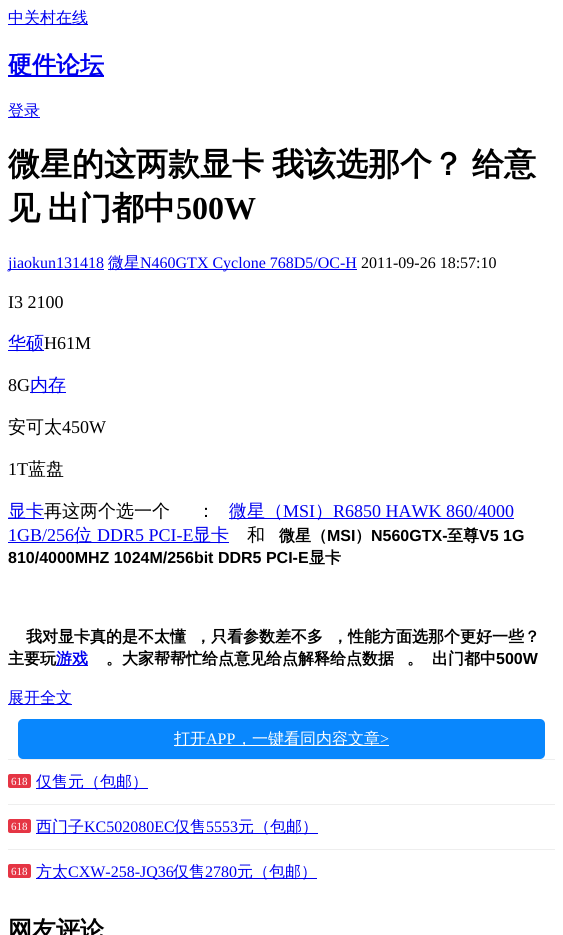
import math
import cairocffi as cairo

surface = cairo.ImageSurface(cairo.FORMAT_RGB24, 563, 935)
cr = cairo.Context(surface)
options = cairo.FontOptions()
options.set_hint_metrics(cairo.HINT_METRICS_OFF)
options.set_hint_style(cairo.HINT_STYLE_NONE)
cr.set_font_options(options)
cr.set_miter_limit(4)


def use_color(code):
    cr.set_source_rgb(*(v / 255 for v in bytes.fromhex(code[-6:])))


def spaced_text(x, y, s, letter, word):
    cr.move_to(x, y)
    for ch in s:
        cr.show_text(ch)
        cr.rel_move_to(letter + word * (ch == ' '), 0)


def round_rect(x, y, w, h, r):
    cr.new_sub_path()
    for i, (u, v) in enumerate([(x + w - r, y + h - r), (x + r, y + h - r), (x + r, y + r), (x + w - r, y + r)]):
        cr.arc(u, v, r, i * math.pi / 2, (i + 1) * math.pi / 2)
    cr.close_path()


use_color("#ffffff")
cr.paint()
use_color("#0000ee")
cr.rectangle(8, 24, 80, 1)
cr.fill()
cr.select_font_face("WenQuanYi Zen Hei Medium")
cr.set_font_size(16)
cr.move_to(8, 23)
cr.show_text("中关村在线")
cr.rectangle(8, 75, 96, 2)
cr.fill()
cr.select_font_face("WenQuanYi Zen Hei", cairo.FONT_SLANT_NORMAL, cairo.FONT_WEIGHT_BOLD)
cr.set_font_size(24)
cr.move_to(8, 73)
cr.show_text("硬件论坛")
cr.rectangle(8, 117, 32, 1)
cr.fill()
cr.select_font_face("WenQuanYi Zen Hei Medium")
cr.set_font_size(16)
cr.move_to(8, 116)
cr.show_text("登录")
cr.select_font_face("WenQuanYi Zen Hei", cairo.FONT_SLANT_NORMAL, cairo.FONT_WEIGHT_BOLD)
cr.set_font_size(32)
use_color("#000000")
cr.move_to(8, 175)
cr.show_text("微星的这两款显卡")
cr.move_to(272, 175)
cr.show_text("我该选那个？")
cr.move_to(472, 175)
cr.show_text("给意")
spaced_text(8, 219, "见 出门都中", 0, -2)
cr.select_font_face("Liberation Serif", cairo.FONT_SLANT_NORMAL, cairo.FONT_WEIGHT_BOLD)
cr.move_to(176, 219)
cr.show_text("500W")
use_color("#0000ee")
cr.rectangle(8, 269, 96, 1)
cr.fill()
cr.select_font_face("Liberation Serif")
cr.set_font_size(16)
cr.move_to(8, 268)
cr.show_text("jiaokun131418")
cr.rectangle(108, 269, 249, 1)
cr.fill()
cr.select_font_face("WenQuanYi Zen Hei Medium")
cr.move_to(108, 268)
cr.show_text("微星")
cr.select_font_face("Liberation Serif")
cr.move_to(140, 268)
cr.show_text("N460GTX Cyclone 768D5/OC-H")
use_color("#000000")
cr.move_to(361, 268)
cr.show_text("2011-09-26 18:57:10")
cr.set_font_size(18)
cr.move_to(8, 308)
cr.show_text("I3 2100")
use_color("#0000ee")
cr.rectangle(8, 350, 36, 1)
cr.fill()
cr.select_font_face("WenQuanYi Zen Hei Medium")
cr.move_to(8, 349)
cr.show_text("华硕")
cr.select_font_face("Liberation Serif")
use_color("#000000")
cr.move_to(44, 349)
cr.show_text("H61M")
cr.move_to(8, 391)
cr.show_text("8G")
use_color("#0000ee")
cr.rectangle(30, 392, 36, 1)
cr.fill()
cr.select_font_face("WenQuanYi Zen Hei Medium")
cr.move_to(30, 391)
cr.show_text("内存")
use_color("#000000")
cr.move_to(8, 433)
cr.show_text("安可太")
cr.select_font_face("Liberation Serif")
cr.move_to(62, 433)
cr.show_text("450W")
cr.move_to(8, 475)
cr.show_text("1T")
cr.select_font_face("WenQuanYi Zen Hei Medium")
cr.move_to(28, 475)
cr.show_text("蓝盘")
use_color("#0000ee")
cr.rectangle(8, 518, 36, 1)
cr.fill()
cr.move_to(8, 517)
cr.show_text("显卡")
use_color("#000000")
cr.move_to(44, 517)
cr.show_text("再这两个选一个")
cr.move_to(197, 517)
cr.show_text("：")
use_color("#0000ee")
cr.rectangle(229, 518, 285, 1)
cr.fill()
cr.move_to(229, 517)
cr.show_text("微星（")
cr.select_font_face("Liberation Serif")
cr.move_to(283, 517)
cr.show_text("MSI")
cr.select_font_face("WenQuanYi Zen Hei Medium")
cr.move_to(315, 517)
cr.show_text("）")
cr.select_font_face("Liberation Serif")
cr.move_to(333, 517)
cr.show_text("R6850 HAWK 860/4000")
cr.move_to(8, 541)
cr.show_text("1GB/256")
cr.rectangle(8, 542, 221, 1)
cr.fill()
cr.select_font_face("WenQuanYi Zen Hei Medium")
cr.move_to(74, 541)
cr.show_text("位")
cr.select_font_face("Liberation Serif")
cr.move_to(97, 541)
cr.show_text("DDR5 PCI-E")
cr.select_font_face("WenQuanYi Zen Hei Medium")
cr.move_to(193, 541)
cr.show_text("显卡")
use_color("#000000")
cr.move_to(247, 541)
cr.show_text("和")
cr.select_font_face("WenQuanYi Zen Hei", cairo.FONT_SLANT_NORMAL, cairo.FONT_WEIGHT_BOLD)
cr.set_font_size(16)
cr.move_to(279, 541)
cr.show_text("微星（")
cr.select_font_face("Liberation Sans", cairo.FONT_SLANT_NORMAL, cairo.FONT_WEIGHT_BOLD)
cr.move_to(327, 541)
cr.show_text("MSI")
cr.select_font_face("WenQuanYi Zen Hei", cairo.FONT_SLANT_NORMAL, cairo.FONT_WEIGHT_BOLD)
cr.move_to(355, 541)
cr.show_text("）")
cr.select_font_face("Liberation Sans", cairo.FONT_SLANT_NORMAL, cairo.FONT_WEIGHT_BOLD)
cr.move_to(371, 541)
cr.show_text("N560GTX-")
cr.select_font_face("WenQuanYi Zen Hei", cairo.FONT_SLANT_NORMAL, cairo.FONT_WEIGHT_BOLD)
cr.move_to(447, 541)
cr.show_text("至尊")
cr.select_font_face("Liberation Sans", cairo.FONT_SLANT_NORMAL, cairo.FONT_WEIGHT_BOLD)
cr.move_to(479, 541)
cr.show_text("V5 1G")
cr.move_to(8, 563)
cr.show_text("810/4000MHZ 1024M/256bit DDR5 PCI-E")
cr.select_font_face("WenQuanYi Zen Hei", cairo.FONT_SLANT_NORMAL, cairo.FONT_WEIGHT_BOLD)
cr.move_to(309, 563)
cr.show_text("显卡")
cr.move_to(26, 642)
cr.show_text("我对显卡真的是不太懂")
cr.move_to(195, 642)
cr.show_text("，只看参数差不多")
cr.move_to(332, 642)
cr.show_text("，性能方面选那个更好一些？")
cr.move_to(8, 664)
cr.show_text("主要玩")
use_color("#0000ee")
cr.rectangle(56, 665, 32, 1)
cr.fill()
cr.move_to(56, 664)
cr.show_text("游戏")
use_color("#000000")
cr.move_to(106, 664)
cr.show_text("。大家帮帮忙给点意见给点解释给点数据")
cr.move_to(407, 664)
cr.show_text("。")
cr.move_to(432, 664)
cr.show_text("出门都中")
cr.select_font_face("Liberation Sans", cairo.FONT_SLANT_NORMAL, cairo.FONT_WEIGHT_BOLD)
cr.move_to(496, 664)
cr.show_text("500W")
use_color("#0000ee")
cr.rectangle(8, 704, 64, 1)
cr.fill()
cr.select_font_face("WenQuanYi Zen Hei Medium")
cr.move_to(8, 703)
cr.show_text("展开全文")
use_color("#0987fd")
round_rect(18, 719, 527, 40, 5)
cr.fill()
use_color("#ffffff")
cr.rectangle(174, 745, 215, 1)
cr.fill()
cr.move_to(174, 744)
cr.show_text("打开")
cr.select_font_face("Liberation Serif")
cr.move_to(206, 744)
cr.show_text("APP")
cr.select_font_face("WenQuanYi Zen Hei Medium")
cr.move_to(236, 744)
cr.show_text("，一键看同内容文章")
cr.select_font_face("Liberation Serif")
cr.move_to(380, 744)
cr.show_text(">")
use_color("#eeeeee")
cr.rectangle(8, 759, 547, 1)
cr.fill()
use_color("#e53544")
round_rect(8, 774, 23, 14, 2)
cr.fill()
cr.set_font_size(11)
use_color("#ffffff")
cr.move_to(11, 785)
cr.show_text("618")
use_color("#0000ee")
cr.rectangle(36, 788, 112, 1)
cr.fill()
cr.select_font_face("WenQuanYi Zen Hei Medium")
cr.set_font_size(16)
cr.move_to(36, 787)
cr.show_text("仅售元（包邮）")
use_color("#eeeeee")
cr.rectangle(8, 804, 547, 1)
cr.fill()
use_color("#e53544")
round_rect(8, 819, 23, 14, 2)
cr.fill()
cr.select_font_face("Liberation Serif")
cr.set_font_size(11)
use_color("#ffffff")
cr.move_to(11, 830)
cr.show_text("618")
use_color("#0000ee")
cr.rectangle(36, 833, 282, 1)
cr.fill()
cr.select_font_face("WenQuanYi Zen Hei Medium")
cr.set_font_size(16)
cr.move_to(36, 832)
cr.show_text("西门子")
cr.select_font_face("Liberation Serif")
cr.move_to(84, 832)
cr.show_text("KC502080EC")
cr.select_font_face("WenQuanYi Zen Hei Medium")
cr.move_to(174, 832)
cr.show_text("仅售")
cr.select_font_face("Liberation Serif")
cr.move_to(206, 832)
cr.show_text("5553")
cr.select_font_face("WenQuanYi Zen Hei Medium")
cr.move_to(238, 832)
cr.show_text("元（包邮）")
use_color("#eeeeee")
cr.rectangle(8, 849, 547, 1)
cr.fill()
use_color("#e53544")
round_rect(8, 864, 23, 14, 2)
cr.fill()
cr.select_font_face("Liberation Serif")
cr.set_font_size(11)
use_color("#ffffff")
cr.move_to(11, 875)
cr.show_text("618")
use_color("#0000ee")
cr.rectangle(36, 878, 281, 1)
cr.fill()
cr.select_font_face("WenQuanYi Zen Hei Medium")
cr.set_font_size(16)
cr.move_to(36, 877)
cr.show_text("方太")
cr.select_font_face("Liberation Serif")
cr.move_to(68, 877)
cr.show_text("CXW-258-JQ36")
cr.select_font_face("WenQuanYi Zen Hei Medium")
cr.move_to(173, 877)
cr.show_text("仅售")
cr.select_font_face("Liberation Serif")
cr.move_to(205, 877)
cr.show_text("2780")
cr.select_font_face("WenQuanYi Zen Hei Medium")
cr.move_to(237, 877)
cr.show_text("元（包邮）")
cr.select_font_face("WenQuanYi Zen Hei", cairo.FONT_SLANT_NORMAL, cairo.FONT_WEIGHT_BOLD)
cr.set_font_size(24)
use_color("#000000")
cr.move_to(8, 938)
cr.show_text("网友评论")
surface.write_to_png("result.png")
